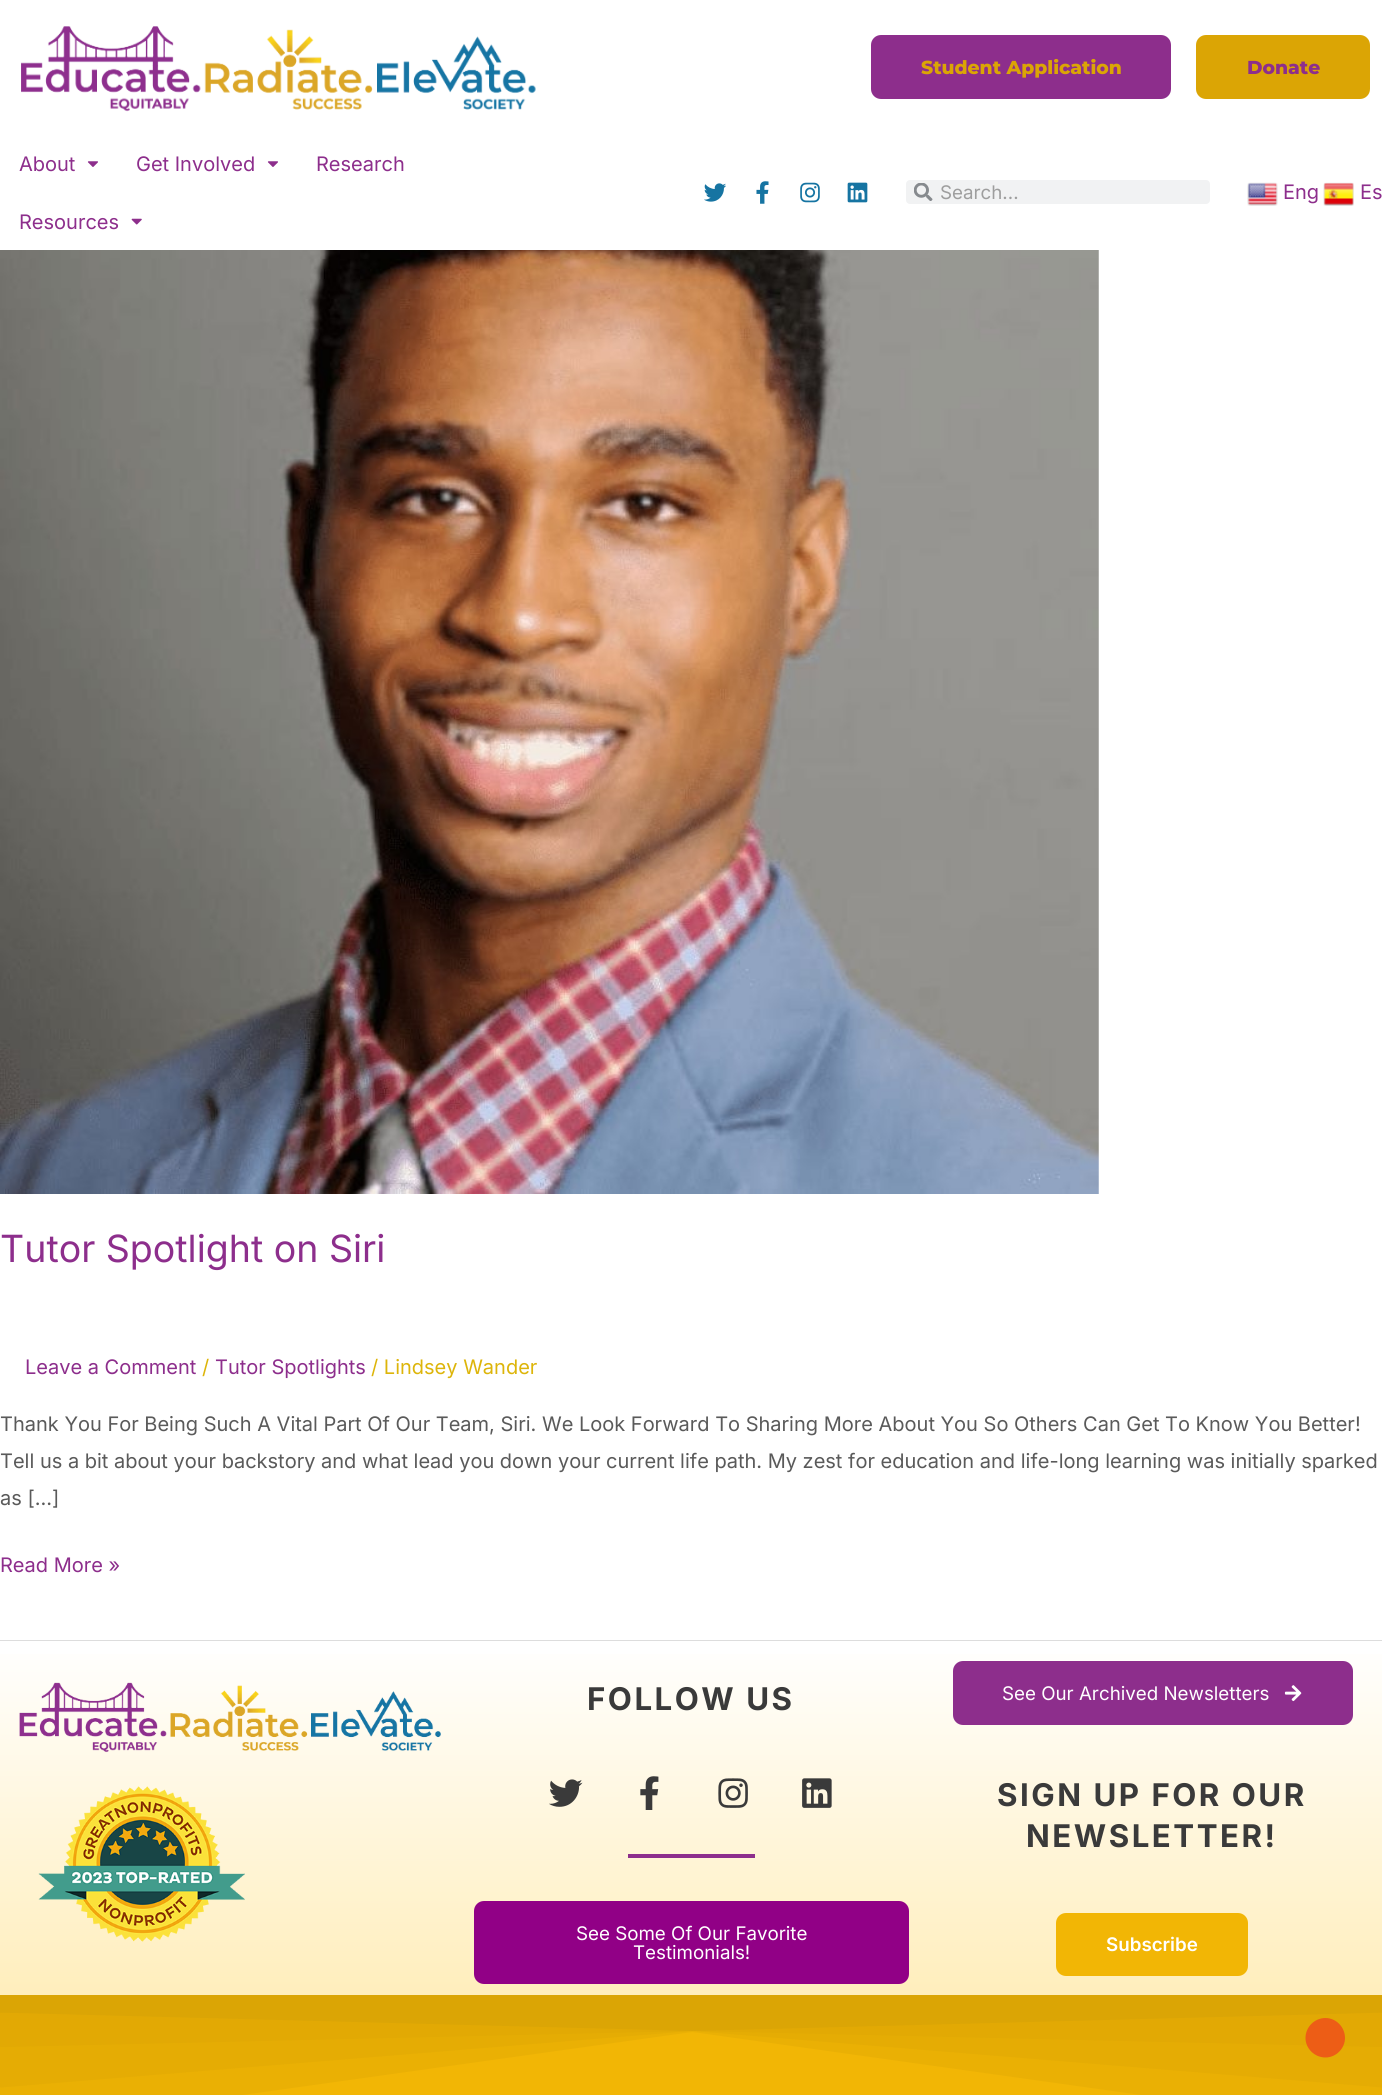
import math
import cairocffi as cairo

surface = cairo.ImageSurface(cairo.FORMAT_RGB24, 1382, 2095)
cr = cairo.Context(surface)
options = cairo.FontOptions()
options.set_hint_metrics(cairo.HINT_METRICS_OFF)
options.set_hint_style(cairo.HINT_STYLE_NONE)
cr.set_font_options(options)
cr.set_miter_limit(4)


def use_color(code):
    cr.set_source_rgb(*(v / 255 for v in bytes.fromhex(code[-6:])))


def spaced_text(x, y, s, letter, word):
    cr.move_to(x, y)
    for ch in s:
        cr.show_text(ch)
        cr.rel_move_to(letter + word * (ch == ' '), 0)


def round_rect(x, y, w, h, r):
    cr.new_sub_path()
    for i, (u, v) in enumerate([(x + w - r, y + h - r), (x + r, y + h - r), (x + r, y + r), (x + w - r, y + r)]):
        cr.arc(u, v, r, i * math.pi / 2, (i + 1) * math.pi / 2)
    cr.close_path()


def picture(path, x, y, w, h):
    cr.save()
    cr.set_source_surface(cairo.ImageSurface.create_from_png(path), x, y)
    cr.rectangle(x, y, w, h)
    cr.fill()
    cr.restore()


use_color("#ffffff")
cr.paint()
picture("img1.png", 21, 26, 515, 86)
use_color("#8d2e8c")
round_rect(871, 35, 300, 64, 10)
cr.fill()
cr.select_font_face("Montserrat ExtraBold")
cr.set_font_size(18.75)
use_color("#dba505")
cr.move_to(921, 74)
cr.show_text("Student Application")
round_rect(1196, 35, 174, 64, 10)
cr.fill()
use_color("#8d2e8c")
cr.move_to(1247, 74)
cr.show_text("Donate")
cr.select_font_face("Inter")
cr.set_font_size(20)
cr.move_to(19, 171)
cr.show_text("About")
picture("img2.png", 87, 161, 11, 6)
cr.move_to(136, 171)
cr.show_text("Get Involved")
picture("img2.png", 267, 161, 11, 6)
cr.move_to(316, 171)
cr.show_text("Research")
cr.move_to(19, 229)
cr.show_text("Resources")
picture("img3.png", 131, 218, 11, 7)
picture("img4.png", 704, 183, 22, 19)
picture("img5.png", 756, 181, 13, 23)
picture("img6.png", 800, 182, 20, 21)
picture("img7.png", 847, 182, 21, 21)
use_color("#f1f2f3")
round_rect(906, 180, 304, 24, 4)
cr.fill()
picture("img8.png", 914, 183, 19, 18)
cr.set_font_size(18.75)
use_color("#9e9e9e")
cr.move_to(940, 199)
cr.show_text("Search...")
picture("img9.png", 1247, 182, 31, 24)
cr.set_font_size(20)
use_color("#8d2e8c")
cr.move_to(1283, 199)
cr.show_text("Eng")
picture("img10.png", 1323, 182, 31, 24)
cr.move_to(1360, 199)
cr.show_text("Es")
use_color("#dddddd")
cr.rectangle(0, 1640, 1382, 1)
cr.fill()
picture("img11.png", 0, 250, 1099, 944)
cr.set_font_size(37.5)
use_color("#8d2e8c")
cr.move_to(0, 1262)
cr.show_text("Tutor Spotlight on Siri")
cr.set_font_size(20)
cr.move_to(25, 1374)
cr.show_text("Leave a Comment")
use_color("#ddb50a")
cr.move_to(202, 1374)
cr.show_text("/")
use_color("#8d2e8c")
cr.move_to(215, 1374)
cr.show_text("Tutor Spotlights")
use_color("#ddb50a")
cr.move_to(371, 1374)
cr.show_text("/ Lindsey Wander")
use_color("#5a5a5a")
cr.move_to(0, 1431)
cr.show_text("Thank You For Being Such A Vital Part Of Our Team, Siri. We Look Forward To Sharing More About You So Others Can Get To Know You Better!")
cr.move_to(0, 1468)
cr.show_text("Tell us a bit about your backstory and what lead you down your current life path. My zest for education and life-long learning was initially sparked")
cr.move_to(0, 1505)
cr.show_text("as […]")
use_color("#8d2e8c")
cr.move_to(0, 1572)
cr.show_text("Read More »")
gradient = cairo.LinearGradient(691, 1641, 691, 1996)
gradient.add_color_stop_rgba(0, 1, 1, 1, 1)
gradient.add_color_stop_rgba(1, 1, 0.933, 0.737, 1)
cr.set_source(gradient)
cr.rectangle(0, 1654, 1382, 341)
cr.fill()
picture("img12.png", 19, 1682, 422, 71)
picture("img13.png", 38, 1786, 207, 156)
cr.select_font_face("Inter", cairo.FONT_SLANT_NORMAL, cairo.FONT_WEIGHT_BOLD)
cr.set_font_size(31.25)
use_color("#3a3a3a")
spaced_text(587, 1710, "FOLLOW US", 2.5, 0)
picture("img14.png", 549, 1779, 34, 28)
picture("img15.png", 640, 1776, 19, 34)
picture("img16.png", 718, 1778, 30, 30)
picture("img17.png", 802, 1778, 30, 30)
use_color("#8d2e8c")
cr.rectangle(628, 1854, 127, 4)
cr.fill()
use_color("#910086")
round_rect(474, 1901, 435, 83, 10)
cr.fill()
cr.select_font_face("Inter")
cr.set_font_size(18.75)
use_color("#ffffff")
cr.move_to(576, 1940)
cr.show_text("See Some Of Our Favorite")
cr.move_to(633, 1959)
cr.show_text("Testimonials!")
use_color("#8d2e8c")
round_rect(953, 1661, 400, 64, 10)
cr.fill()
use_color("#ffffff")
cr.move_to(1002, 1700)
cr.show_text("See Our Archived Newsletters")
picture("img18.png", 1284, 1685, 18, 17)
cr.select_font_face("Inter", cairo.FONT_SLANT_NORMAL, cairo.FONT_WEIGHT_BOLD)
cr.set_font_size(31.25)
use_color("#3a3a3a")
spaced_text(997, 1806, "SIGN UP FOR OUR", 2.5, 0)
spaced_text(1026, 1847, "NEWSLETTER!", 2.5, 0)
use_color("#f2b605")
round_rect(1056, 1913, 192, 63, 10)
cr.fill()
cr.select_font_face("Inter SemiBold")
cr.set_font_size(18.75)
use_color("#ffffff")
cr.move_to(1106, 1951)
cr.show_text("Subscribe")
use_color("#f2b605")
cr.rectangle(0, 2012, 1382, 83)
cr.fill()
cr.set_source_rgba(0.859, 0.647, 0.02, 0.33)
cr.new_path()
cr.move_to(-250, 1995)
cr.line_to(-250, 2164)
cr.line_to(692, 2032)
cr.line_to(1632, 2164)
cr.line_to(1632, 1995)
cr.close_path()
cr.fill()
cr.new_path()
cr.move_to(-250, 1995)
cr.line_to(-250, 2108)
cr.line_to(692, 2031)
cr.line_to(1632, 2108)
cr.line_to(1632, 1995)
cr.close_path()
cr.fill()
cr.new_path()
cr.move_to(-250, 1995)
cr.line_to(-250, 2053)
cr.line_to(692, 2031)
cr.line_to(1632, 2053)
cr.line_to(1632, 1995)
cr.close_path()
cr.fill()
use_color("#dba505")
cr.new_path()
cr.move_to(-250, 1995)
cr.line_to(-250, 2006)
cr.line_to(692, 2031)
cr.line_to(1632, 2006)
cr.line_to(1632, 1995)
cr.close_path()
cr.fill()
use_color("#ed5d16")
cr.new_path()
cr.move_to(1325.5, 2057.5)
cr.curve_to(1314.5, 2057.5, 1305.5, 2048.5, 1305.5, 2038)
cr.curve_to(1305.5, 2027, 1314.5, 2018, 1325.5, 2018)
cr.curve_to(1336, 2018, 1345, 2027, 1345, 2038)
cr.curve_to(1345, 2048.5, 1336, 2057.5, 1325.5, 2057.5)
cr.close_path()
cr.fill()
surface.write_to_png("result.png")
